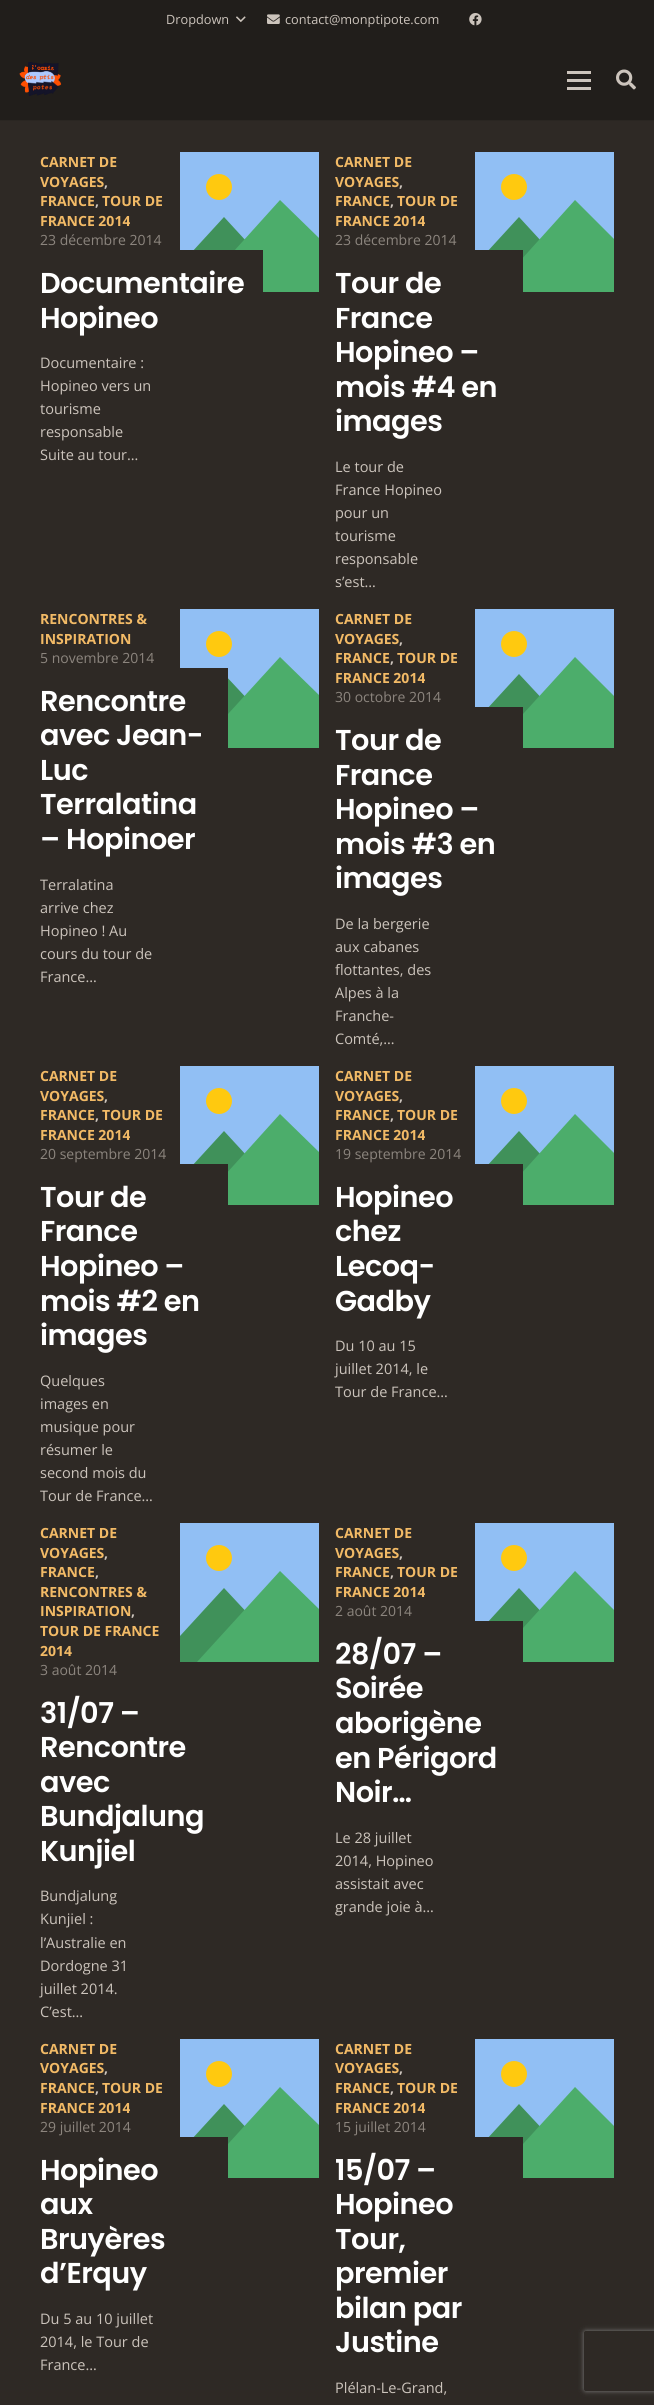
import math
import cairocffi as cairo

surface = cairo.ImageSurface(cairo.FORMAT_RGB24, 654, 2405)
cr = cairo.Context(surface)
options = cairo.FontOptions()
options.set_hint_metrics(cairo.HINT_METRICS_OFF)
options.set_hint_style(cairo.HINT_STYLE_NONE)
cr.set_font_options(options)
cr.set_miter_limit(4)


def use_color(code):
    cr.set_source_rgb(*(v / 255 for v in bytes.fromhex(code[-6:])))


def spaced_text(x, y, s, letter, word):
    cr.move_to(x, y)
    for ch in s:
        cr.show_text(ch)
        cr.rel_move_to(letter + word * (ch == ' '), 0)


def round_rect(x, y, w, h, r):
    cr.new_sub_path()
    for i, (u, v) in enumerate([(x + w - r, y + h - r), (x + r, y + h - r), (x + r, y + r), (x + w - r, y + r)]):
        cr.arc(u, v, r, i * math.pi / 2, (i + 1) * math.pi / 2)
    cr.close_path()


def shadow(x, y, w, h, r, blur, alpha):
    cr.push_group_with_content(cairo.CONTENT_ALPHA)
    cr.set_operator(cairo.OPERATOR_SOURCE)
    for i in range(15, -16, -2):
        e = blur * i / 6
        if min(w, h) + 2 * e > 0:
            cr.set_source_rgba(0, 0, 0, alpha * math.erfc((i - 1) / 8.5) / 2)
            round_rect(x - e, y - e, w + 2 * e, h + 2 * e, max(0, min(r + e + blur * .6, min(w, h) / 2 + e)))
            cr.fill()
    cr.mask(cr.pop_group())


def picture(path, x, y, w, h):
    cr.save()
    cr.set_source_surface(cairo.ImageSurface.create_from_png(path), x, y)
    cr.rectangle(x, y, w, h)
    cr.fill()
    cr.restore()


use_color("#2e2925")
cr.paint()
use_color("#211e1b")
cr.rectangle(0, 0, 654, 120)
cr.fill()
cr.select_font_face("Open Sans")
cr.set_font_size(12.75)
use_color("#ccc4bc")
cr.move_to(166, 24)
cr.show_text("Dropdown")
picture("img1.png", 236, 16, 10, 7)
picture("img2.png", 267, 14, 13, 10)
cr.move_to(285, 24)
cr.show_text("contact@monptipote.com")
picture("img3.png", 469, 13, 13, 13)
use_color("#2a2622")
cr.rectangle(0, 120, 654, 1)
cr.fill()
picture("img4.png", 19, 62, 43, 34)
use_color("#ccc4bc")
cr.rectangle(567, 79, 24, 3)
cr.fill()
cr.rectangle(567, 71, 24, 3)
cr.fill()
cr.rectangle(567, 87, 24, 3)
cr.fill()
picture("img5.png", 616, 69, 20, 21)
cr.select_font_face("Open Sans", cairo.FONT_SLANT_NORMAL, cairo.FONT_WEIGHT_BOLD)
cr.set_font_size(14)
use_color("#f2ba66")
cr.move_to(40, 167)
cr.show_text("CARNET DE")
cr.move_to(40, 187)
cr.show_text("VOYAGES")
use_color("#ccc4bc")
cr.move_to(104, 187)
cr.show_text(",")
use_color("#f2ba66")
cr.move_to(40, 206)
cr.show_text("FRANCE")
use_color("#ccc4bc")
cr.move_to(95, 206)
cr.show_text(",")
use_color("#f2ba66")
cr.move_to(102, 206)
cr.show_text("TOUR DE")
cr.move_to(40, 226)
cr.show_text("FRANCE 2014")
cr.select_font_face("Open Sans")
use_color("#8c857e")
cr.move_to(40, 245)
cr.show_text("23 décembre 2014")
use_color("#91bff4")
cr.rectangle(180, 152, 139, 98)
cr.fill()
use_color("#40915a")
cr.new_path()
cr.move_to(293, 292)
cr.line_to(180, 292)
cr.line_to(180, 265)
cr.line_to(224, 217)
cr.close_path()
cr.fill()
cr.save()
cr.rectangle(180, 152, 139, 140)
cr.clip()
use_color("#4cad6b")
cr.new_path()
cr.move_to(320, 239)
cr.line_to(320, 292)
cr.line_to(197, 292)
cr.line_to(280, 200)
cr.close_path()
cr.fill()
cr.restore()
use_color("#2e2925")
cr.rectangle(180, 250, 83, 42)
cr.fill()
cr.select_font_face("Poppins SemiBold")
cr.set_font_size(28.75)
use_color("#ffffff")
spaced_text(40, 293, "Documentaire", -0.5, 0)
spaced_text(40, 328, "Hopineo", -0.5, 0)
cr.select_font_face("Open Sans")
cr.set_font_size(14.5)
use_color("#ccc4bc")
cr.move_to(40, 368)
cr.show_text("Documentaire :")
cr.move_to(40, 391)
cr.show_text("Hopineo vers un")
cr.move_to(40, 414)
cr.show_text("tourisme")
cr.move_to(40, 437)
cr.show_text("responsable")
cr.move_to(40, 460)
cr.show_text("Suite au tour…")
use_color("#ffc90f")
cr.new_path()
cr.arc(219, 187, 13, 0, 2 * math.pi)
cr.fill()
cr.select_font_face("Open Sans", cairo.FONT_SLANT_NORMAL, cairo.FONT_WEIGHT_BOLD)
cr.set_font_size(14)
use_color("#f2ba66")
cr.move_to(335, 167)
cr.show_text("CARNET DE")
cr.move_to(335, 187)
cr.show_text("VOYAGES")
use_color("#ccc4bc")
cr.move_to(399, 187)
cr.show_text(",")
use_color("#f2ba66")
cr.move_to(335, 206)
cr.show_text("FRANCE")
use_color("#ccc4bc")
cr.move_to(390, 206)
cr.show_text(",")
use_color("#f2ba66")
cr.move_to(397, 206)
cr.show_text("TOUR DE")
cr.move_to(335, 226)
cr.show_text("FRANCE 2014")
cr.select_font_face("Open Sans")
use_color("#8c857e")
cr.move_to(335, 245)
cr.show_text("23 décembre 2014")
use_color("#91bff4")
cr.rectangle(475, 152, 139, 98)
cr.fill()
use_color("#40915a")
cr.new_path()
cr.move_to(588, 292)
cr.line_to(475, 292)
cr.line_to(475, 265)
cr.line_to(519, 217)
cr.close_path()
cr.fill()
use_color("#4cad6b")
cr.new_path()
cr.move_to(614, 239)
cr.line_to(614, 292)
cr.line_to(492, 292)
cr.line_to(575, 200)
cr.close_path()
cr.fill()
use_color("#2e2925")
cr.rectangle(475, 250, 48, 42)
cr.fill()
cr.select_font_face("Poppins SemiBold")
cr.set_font_size(28.75)
use_color("#ffffff")
spaced_text(335, 293, "Tour de", -0.5, 0)
spaced_text(335, 328, "France", -0.5, 0)
spaced_text(335, 362, "Hopineo –", -0.5, 0)
spaced_text(335, 397, "mois #4 en", -0.5, 0)
spaced_text(335, 431, "images", -0.5, 0)
cr.select_font_face("Open Sans")
cr.set_font_size(14.5)
use_color("#ccc4bc")
cr.move_to(335, 472)
cr.show_text("Le tour de")
cr.move_to(335, 495)
cr.show_text("France Hopineo")
cr.move_to(335, 518)
cr.show_text("pour un")
cr.move_to(335, 541)
cr.show_text("tourisme")
cr.move_to(335, 564)
cr.show_text("responsable")
cr.move_to(335, 587)
cr.show_text("s’est…")
use_color("#ffc90f")
cr.new_path()
cr.arc(514, 187, 13, 0, 2 * math.pi)
cr.fill()
cr.select_font_face("Open Sans", cairo.FONT_SLANT_NORMAL, cairo.FONT_WEIGHT_BOLD)
cr.set_font_size(14)
use_color("#f2ba66")
cr.move_to(40, 624)
cr.show_text("RENCONTRES &")
cr.move_to(40, 644)
cr.show_text("INSPIRATION")
cr.select_font_face("Open Sans")
use_color("#8c857e")
cr.move_to(40, 663)
cr.show_text("5 novembre 2014")
use_color("#91bff4")
cr.rectangle(180, 609, 139, 88)
cr.fill()
use_color("#40915a")
cr.new_path()
cr.move_to(293, 748)
cr.line_to(180, 748)
cr.line_to(180, 722)
cr.line_to(224, 674)
cr.close_path()
cr.fill()
cr.save()
cr.rectangle(180, 609, 139, 139)
cr.clip()
use_color("#4cad6b")
cr.new_path()
cr.move_to(320, 696)
cr.line_to(320, 748)
cr.line_to(197, 748)
cr.line_to(280, 657)
cr.close_path()
cr.fill()
cr.restore()
use_color("#2e2925")
cr.rectangle(180, 668, 48, 80)
cr.fill()
cr.select_font_face("Poppins SemiBold")
cr.set_font_size(28.75)
use_color("#ffffff")
spaced_text(40, 711, "Rencontre", -0.5, 0)
spaced_text(40, 745, "avec Jean-", -0.5, 0)
spaced_text(40, 780, "Luc", -0.5, 0)
spaced_text(40, 814, "Terralatina", -0.5, 0)
spaced_text(40, 849, "– Hopinoer", -0.5, 0)
cr.select_font_face("Open Sans")
cr.set_font_size(14.5)
use_color("#ccc4bc")
cr.move_to(40, 890)
cr.show_text("Terralatina")
cr.move_to(40, 913)
cr.show_text("arrive chez")
cr.move_to(40, 936)
cr.show_text("Hopineo ! Au")
cr.move_to(40, 959)
cr.show_text("cours du tour de")
cr.move_to(40, 982)
cr.show_text("France…")
use_color("#ffc90f")
cr.new_path()
cr.arc(219, 644, 13, 0, 2 * math.pi)
cr.fill()
cr.select_font_face("Open Sans", cairo.FONT_SLANT_NORMAL, cairo.FONT_WEIGHT_BOLD)
cr.set_font_size(14)
use_color("#f2ba66")
cr.move_to(335, 624)
cr.show_text("CARNET DE")
cr.move_to(335, 644)
cr.show_text("VOYAGES")
use_color("#ccc4bc")
cr.move_to(399, 644)
cr.show_text(",")
use_color("#f2ba66")
cr.move_to(335, 663)
cr.show_text("FRANCE")
use_color("#ccc4bc")
cr.move_to(390, 663)
cr.show_text(",")
use_color("#f2ba66")
cr.move_to(397, 663)
cr.show_text("TOUR DE")
cr.move_to(335, 683)
cr.show_text("FRANCE 2014")
cr.select_font_face("Open Sans")
use_color("#8c857e")
cr.move_to(335, 702)
cr.show_text("30 octobre 2014")
use_color("#91bff4")
cr.rectangle(475, 609, 139, 98)
cr.fill()
use_color("#40915a")
cr.new_path()
cr.move_to(588, 748)
cr.line_to(475, 748)
cr.line_to(475, 722)
cr.line_to(519, 674)
cr.close_path()
cr.fill()
use_color("#4cad6b")
cr.new_path()
cr.move_to(614, 696)
cr.line_to(614, 748)
cr.line_to(492, 748)
cr.line_to(575, 657)
cr.close_path()
cr.fill()
use_color("#2e2925")
cr.rectangle(475, 707, 48, 41)
cr.fill()
cr.select_font_face("Poppins SemiBold")
cr.set_font_size(28.75)
use_color("#ffffff")
spaced_text(335, 750, "Tour de", -0.5, 0)
spaced_text(335, 785, "France", -0.5, 0)
spaced_text(335, 819, "Hopineo –", -0.5, 0)
spaced_text(335, 854, "mois #3 en", -0.5, 0)
spaced_text(335, 888, "images", -0.5, 0)
cr.select_font_face("Open Sans")
cr.set_font_size(14.5)
use_color("#ccc4bc")
cr.move_to(335, 929)
cr.show_text("De la bergerie")
cr.move_to(335, 952)
cr.show_text("aux cabanes")
cr.move_to(335, 975)
cr.show_text("flottantes, des")
cr.move_to(335, 998)
cr.show_text("Alpes à la")
cr.move_to(335, 1021)
cr.show_text("Franche-")
cr.move_to(335, 1044)
cr.show_text("Comté,…")
use_color("#ffc90f")
cr.new_path()
cr.arc(514, 644, 13, 0, 2 * math.pi)
cr.fill()
cr.select_font_face("Open Sans", cairo.FONT_SLANT_NORMAL, cairo.FONT_WEIGHT_BOLD)
cr.set_font_size(14)
use_color("#f2ba66")
cr.move_to(40, 1081)
cr.show_text("CARNET DE")
cr.move_to(40, 1101)
cr.show_text("VOYAGES")
use_color("#ccc4bc")
cr.move_to(104, 1101)
cr.show_text(",")
use_color("#f2ba66")
cr.move_to(40, 1120)
cr.show_text("FRANCE")
use_color("#ccc4bc")
cr.move_to(95, 1120)
cr.show_text(",")
use_color("#f2ba66")
cr.move_to(102, 1120)
cr.show_text("TOUR DE")
cr.move_to(40, 1140)
cr.show_text("FRANCE 2014")
cr.select_font_face("Open Sans")
use_color("#8c857e")
cr.move_to(40, 1159)
cr.show_text("20 septembre 2014")
use_color("#91bff4")
cr.rectangle(180, 1066, 139, 98)
cr.fill()
cr.save()
cr.rectangle(180, 1066, 139, 139)
cr.clip()
use_color("#40915a")
cr.new_path()
cr.move_to(293, 1206)
cr.line_to(180, 1206)
cr.line_to(180, 1179)
cr.line_to(224, 1131)
cr.close_path()
cr.fill()
use_color("#4cad6b")
cr.new_path()
cr.move_to(320, 1153)
cr.line_to(320, 1206)
cr.line_to(197, 1206)
cr.line_to(280, 1114)
cr.close_path()
cr.fill()
cr.restore()
use_color("#2e2925")
cr.rectangle(180, 1164, 48, 41)
cr.fill()
cr.select_font_face("Poppins SemiBold")
cr.set_font_size(28.75)
use_color("#ffffff")
spaced_text(40, 1207, "Tour de", -0.5, 0)
spaced_text(40, 1241, "France", -0.5, 0)
spaced_text(40, 1276, "Hopineo –", -0.5, 0)
spaced_text(40, 1311, "mois #2 en", -0.5, 0)
spaced_text(40, 1345, "images", -0.5, 0)
cr.select_font_face("Open Sans")
cr.set_font_size(14.5)
use_color("#ccc4bc")
cr.move_to(40, 1386)
cr.show_text("Quelques")
cr.move_to(40, 1409)
cr.show_text("images en")
cr.move_to(40, 1432)
cr.show_text("musique pour")
cr.move_to(40, 1455)
cr.show_text("résumer le")
cr.move_to(40, 1478)
cr.show_text("second mois du")
cr.move_to(40, 1501)
cr.show_text("Tour de France…")
use_color("#ffc90f")
cr.new_path()
cr.arc(219, 1101, 13, 0, 2 * math.pi)
cr.fill()
cr.select_font_face("Open Sans", cairo.FONT_SLANT_NORMAL, cairo.FONT_WEIGHT_BOLD)
cr.set_font_size(14)
use_color("#f2ba66")
cr.move_to(335, 1081)
cr.show_text("CARNET DE")
cr.move_to(335, 1101)
cr.show_text("VOYAGES")
use_color("#ccc4bc")
cr.move_to(399, 1101)
cr.show_text(",")
use_color("#f2ba66")
cr.move_to(335, 1120)
cr.show_text("FRANCE")
use_color("#ccc4bc")
cr.move_to(390, 1120)
cr.show_text(",")
use_color("#f2ba66")
cr.move_to(397, 1120)
cr.show_text("TOUR DE")
cr.move_to(335, 1140)
cr.show_text("FRANCE 2014")
cr.select_font_face("Open Sans")
use_color("#8c857e")
cr.move_to(335, 1159)
cr.show_text("19 septembre 2014")
use_color("#91bff4")
cr.rectangle(475, 1066, 139, 98)
cr.fill()
cr.save()
cr.rectangle(475, 1066, 139, 139)
cr.clip()
use_color("#40915a")
cr.new_path()
cr.move_to(588, 1206)
cr.line_to(475, 1206)
cr.line_to(475, 1179)
cr.line_to(519, 1131)
cr.close_path()
cr.fill()
use_color("#4cad6b")
cr.new_path()
cr.move_to(614, 1153)
cr.line_to(614, 1206)
cr.line_to(492, 1206)
cr.line_to(575, 1114)
cr.close_path()
cr.fill()
cr.restore()
use_color("#2e2925")
cr.rectangle(475, 1164, 48, 41)
cr.fill()
cr.select_font_face("Poppins SemiBold")
cr.set_font_size(28.75)
use_color("#ffffff")
spaced_text(335, 1207, "Hopineo", -0.5, 0)
spaced_text(335, 1241, "chez", -0.5, 0)
spaced_text(335, 1276, "Lecoq-", -0.5, 0)
spaced_text(335, 1311, "Gadby", -0.5, 0)
cr.select_font_face("Open Sans")
cr.set_font_size(14.5)
use_color("#ccc4bc")
cr.move_to(335, 1351)
cr.show_text("Du 10 au 15")
cr.move_to(335, 1374)
cr.show_text("juillet 2014, le")
cr.move_to(335, 1397)
cr.show_text("Tour de France…")
use_color("#ffc90f")
cr.new_path()
cr.arc(514, 1101, 13, 0, 2 * math.pi)
cr.fill()
cr.select_font_face("Open Sans", cairo.FONT_SLANT_NORMAL, cairo.FONT_WEIGHT_BOLD)
cr.set_font_size(14)
use_color("#f2ba66")
cr.move_to(40, 1538)
cr.show_text("CARNET DE")
cr.move_to(40, 1558)
cr.show_text("VOYAGES")
use_color("#ccc4bc")
cr.move_to(104, 1558)
cr.show_text(",")
use_color("#f2ba66")
cr.move_to(40, 1577)
cr.show_text("FRANCE")
use_color("#ccc4bc")
cr.move_to(95, 1577)
cr.show_text(",")
use_color("#f2ba66")
cr.move_to(40, 1597)
cr.show_text("RENCONTRES &")
cr.move_to(40, 1616)
cr.show_text("INSPIRATION")
use_color("#ccc4bc")
cr.move_to(131, 1616)
cr.show_text(",")
use_color("#f2ba66")
cr.move_to(40, 1636)
cr.show_text("TOUR DE FRANCE")
cr.move_to(40, 1656)
cr.show_text("2014")
cr.select_font_face("Open Sans")
use_color("#8c857e")
cr.move_to(40, 1675)
cr.show_text("3 août 2014")
cr.select_font_face("Poppins SemiBold")
cr.set_font_size(28.75)
use_color("#ffffff")
spaced_text(40, 1723, "31/07 –", -0.5, 0)
spaced_text(40, 1757, "Rencontre", -0.5, 0)
spaced_text(40, 1792, "avec", -0.5, 0)
spaced_text(40, 1826, "Bundjalung", -0.5, 0)
spaced_text(40, 1861, "Kunjiel", -0.5, 0)
cr.select_font_face("Open Sans")
cr.set_font_size(14.5)
use_color("#ccc4bc")
cr.move_to(40, 1901)
cr.show_text("Bundjalung")
cr.move_to(40, 1924)
cr.show_text("Kunjiel :")
cr.move_to(40, 1948)
cr.show_text("l’Australie en")
cr.move_to(40, 1971)
cr.show_text("Dordogne 31")
cr.move_to(40, 1994)
cr.show_text("juillet 2014.")
cr.move_to(40, 2017)
cr.show_text("C’est…")
use_color("#91bff4")
cr.rectangle(180, 1523, 139, 113)
cr.fill()
use_color("#40915a")
cr.new_path()
cr.move_to(293, 1662)
cr.line_to(180, 1662)
cr.line_to(180, 1636)
cr.line_to(224, 1588)
cr.close_path()
cr.fill()
cr.save()
cr.rectangle(180, 1523, 139, 139)
cr.clip()
use_color("#4cad6b")
cr.new_path()
cr.move_to(320, 1610)
cr.line_to(320, 1662)
cr.line_to(197, 1662)
cr.line_to(280, 1571)
cr.close_path()
cr.fill()
cr.restore()
use_color("#ffc90f")
cr.arc(219, 1558, 13, 0, 2 * math.pi)
cr.fill()
cr.select_font_face("Open Sans", cairo.FONT_SLANT_NORMAL, cairo.FONT_WEIGHT_BOLD)
cr.set_font_size(14)
use_color("#f2ba66")
cr.move_to(335, 1538)
cr.show_text("CARNET DE")
cr.move_to(335, 1558)
cr.show_text("VOYAGES")
use_color("#ccc4bc")
cr.move_to(399, 1558)
cr.show_text(",")
use_color("#f2ba66")
cr.move_to(335, 1577)
cr.show_text("FRANCE")
use_color("#ccc4bc")
cr.move_to(390, 1577)
cr.show_text(",")
use_color("#f2ba66")
cr.move_to(397, 1577)
cr.show_text("TOUR DE")
cr.move_to(335, 1597)
cr.show_text("FRANCE 2014")
cr.select_font_face("Open Sans")
use_color("#8c857e")
cr.move_to(335, 1616)
cr.show_text("2 août 2014")
use_color("#91bff4")
cr.rectangle(475, 1523, 139, 98)
cr.fill()
use_color("#40915a")
cr.new_path()
cr.move_to(588, 1662)
cr.line_to(475, 1662)
cr.line_to(475, 1636)
cr.line_to(519, 1588)
cr.close_path()
cr.fill()
use_color("#4cad6b")
cr.new_path()
cr.move_to(614, 1610)
cr.line_to(614, 1662)
cr.line_to(492, 1662)
cr.line_to(575, 1571)
cr.close_path()
cr.fill()
use_color("#2e2925")
cr.rectangle(475, 1621, 48, 41)
cr.fill()
cr.select_font_face("Poppins SemiBold")
cr.set_font_size(28.75)
use_color("#ffffff")
spaced_text(335, 1664, "28/07 –", -0.5, 0)
spaced_text(335, 1698, "Soirée", -0.5, 0)
spaced_text(335, 1733, "aborigène", -0.5, 0)
spaced_text(335, 1768, "en Périgord", -0.5, 0)
spaced_text(335, 1802, "Noir…", -0.5, 0)
cr.select_font_face("Open Sans")
cr.set_font_size(14.5)
use_color("#ccc4bc")
cr.move_to(335, 1843)
cr.show_text("Le 28 juillet")
cr.move_to(335, 1866)
cr.show_text("2014, Hopineo")
cr.move_to(335, 1889)
cr.show_text("assistait avec")
cr.move_to(335, 1912)
cr.show_text("grande joie à…")
use_color("#ffc90f")
cr.new_path()
cr.arc(514, 1558, 13, 0, 2 * math.pi)
cr.fill()
cr.select_font_face("Open Sans", cairo.FONT_SLANT_NORMAL, cairo.FONT_WEIGHT_BOLD)
cr.set_font_size(14)
use_color("#f2ba66")
cr.move_to(40, 2054)
cr.show_text("CARNET DE")
cr.move_to(40, 2073)
cr.show_text("VOYAGES")
use_color("#ccc4bc")
cr.move_to(104, 2073)
cr.show_text(",")
use_color("#f2ba66")
cr.move_to(40, 2093)
cr.show_text("FRANCE")
use_color("#ccc4bc")
cr.move_to(95, 2093)
cr.show_text(",")
use_color("#f2ba66")
cr.move_to(102, 2093)
cr.show_text("TOUR DE")
cr.move_to(40, 2113)
cr.show_text("FRANCE 2014")
cr.select_font_face("Open Sans")
use_color("#8c857e")
cr.move_to(40, 2132)
cr.show_text("29 juillet 2014")
use_color("#91bff4")
cr.rectangle(180, 2039, 139, 98)
cr.fill()
use_color("#40915a")
cr.new_path()
cr.move_to(293, 2178)
cr.line_to(180, 2178)
cr.line_to(180, 2152)
cr.line_to(224, 2104)
cr.close_path()
cr.fill()
cr.save()
cr.rectangle(180, 2039, 139, 139)
cr.clip()
use_color("#4cad6b")
cr.new_path()
cr.move_to(320, 2126)
cr.line_to(320, 2178)
cr.line_to(197, 2178)
cr.line_to(280, 2087)
cr.close_path()
cr.fill()
cr.restore()
use_color("#2e2925")
cr.rectangle(180, 2137, 48, 41)
cr.fill()
cr.select_font_face("Poppins SemiBold")
cr.set_font_size(28.75)
use_color("#ffffff")
spaced_text(40, 2180, "Hopineo", -0.5, 0)
spaced_text(40, 2214, "aux", -0.5, 0)
spaced_text(40, 2249, "Bruyères", -0.5, 0)
spaced_text(40, 2283, "d’Erquy", -0.5, 0)
cr.select_font_face("Open Sans")
cr.set_font_size(14.5)
use_color("#ccc4bc")
cr.move_to(40, 2324)
cr.show_text("Du 5 au 10 juillet")
cr.move_to(40, 2347)
cr.show_text("2014, le Tour de")
cr.move_to(40, 2370)
cr.show_text("France…")
use_color("#ffc90f")
cr.new_path()
cr.arc(219, 2074, 13, 0, 2 * math.pi)
cr.fill()
cr.select_font_face("Open Sans", cairo.FONT_SLANT_NORMAL, cairo.FONT_WEIGHT_BOLD)
cr.set_font_size(14)
use_color("#f2ba66")
cr.move_to(335, 2054)
cr.show_text("CARNET DE")
cr.move_to(335, 2073)
cr.show_text("VOYAGES")
use_color("#ccc4bc")
cr.move_to(399, 2073)
cr.show_text(",")
use_color("#f2ba66")
cr.move_to(335, 2093)
cr.show_text("FRANCE")
use_color("#ccc4bc")
cr.move_to(390, 2093)
cr.show_text(",")
use_color("#f2ba66")
cr.move_to(397, 2093)
cr.show_text("TOUR DE")
cr.move_to(335, 2113)
cr.show_text("FRANCE 2014")
cr.select_font_face("Open Sans")
use_color("#8c857e")
cr.move_to(335, 2132)
cr.show_text("15 juillet 2014")
use_color("#91bff4")
cr.rectangle(475, 2039, 139, 98)
cr.fill()
use_color("#40915a")
cr.new_path()
cr.move_to(588, 2178)
cr.line_to(475, 2178)
cr.line_to(475, 2152)
cr.line_to(519, 2104)
cr.close_path()
cr.fill()
use_color("#4cad6b")
cr.new_path()
cr.move_to(614, 2126)
cr.line_to(614, 2178)
cr.line_to(492, 2178)
cr.line_to(575, 2087)
cr.close_path()
cr.fill()
use_color("#2e2925")
cr.rectangle(475, 2137, 48, 41)
cr.fill()
cr.select_font_face("Poppins SemiBold")
cr.set_font_size(28.75)
use_color("#ffffff")
spaced_text(335, 2180, "15/07 –", -0.5, 0)
spaced_text(335, 2214, "Hopineo", -0.5, 0)
spaced_text(335, 2249, "Tour,", -0.5, 0)
spaced_text(335, 2283, "premier", -0.5, 0)
spaced_text(335, 2318, "bilan par", -0.5, 0)
spaced_text(335, 2352, "Justine", -0.5, 0)
cr.select_font_face("Open Sans")
cr.set_font_size(14.5)
use_color("#ccc4bc")
cr.move_to(335, 2393)
cr.show_text("Plélan-Le-Grand,")
use_color("#ffc90f")
cr.new_path()
cr.arc(514, 2074, 13, 0, 2 * math.pi)
cr.fill()
cr.save()
cr.set_fill_rule(cairo.FILL_RULE_EVEN_ODD)
cr.new_path()
cr.move_to(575, 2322)
cr.line_to(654, 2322)
cr.line_to(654, 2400)
cr.line_to(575, 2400)
cr.close_path()
cr.move_to(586, 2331)
cr.line_to(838, 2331)
cr.curve_to(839, 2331, 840, 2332, 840, 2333)
cr.line_to(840, 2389)
cr.curve_to(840, 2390, 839, 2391, 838, 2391)
cr.line_to(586, 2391)
cr.curve_to(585, 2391, 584, 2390, 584, 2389)
cr.line_to(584, 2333)
cr.curve_to(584, 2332, 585, 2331, 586, 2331)
cr.close_path()
cr.clip()
use_color("#808080")
shadow(584, 2331, 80, 60, 2, 2.5, 1)
cr.restore()
surface.write_to_png("result.png")
